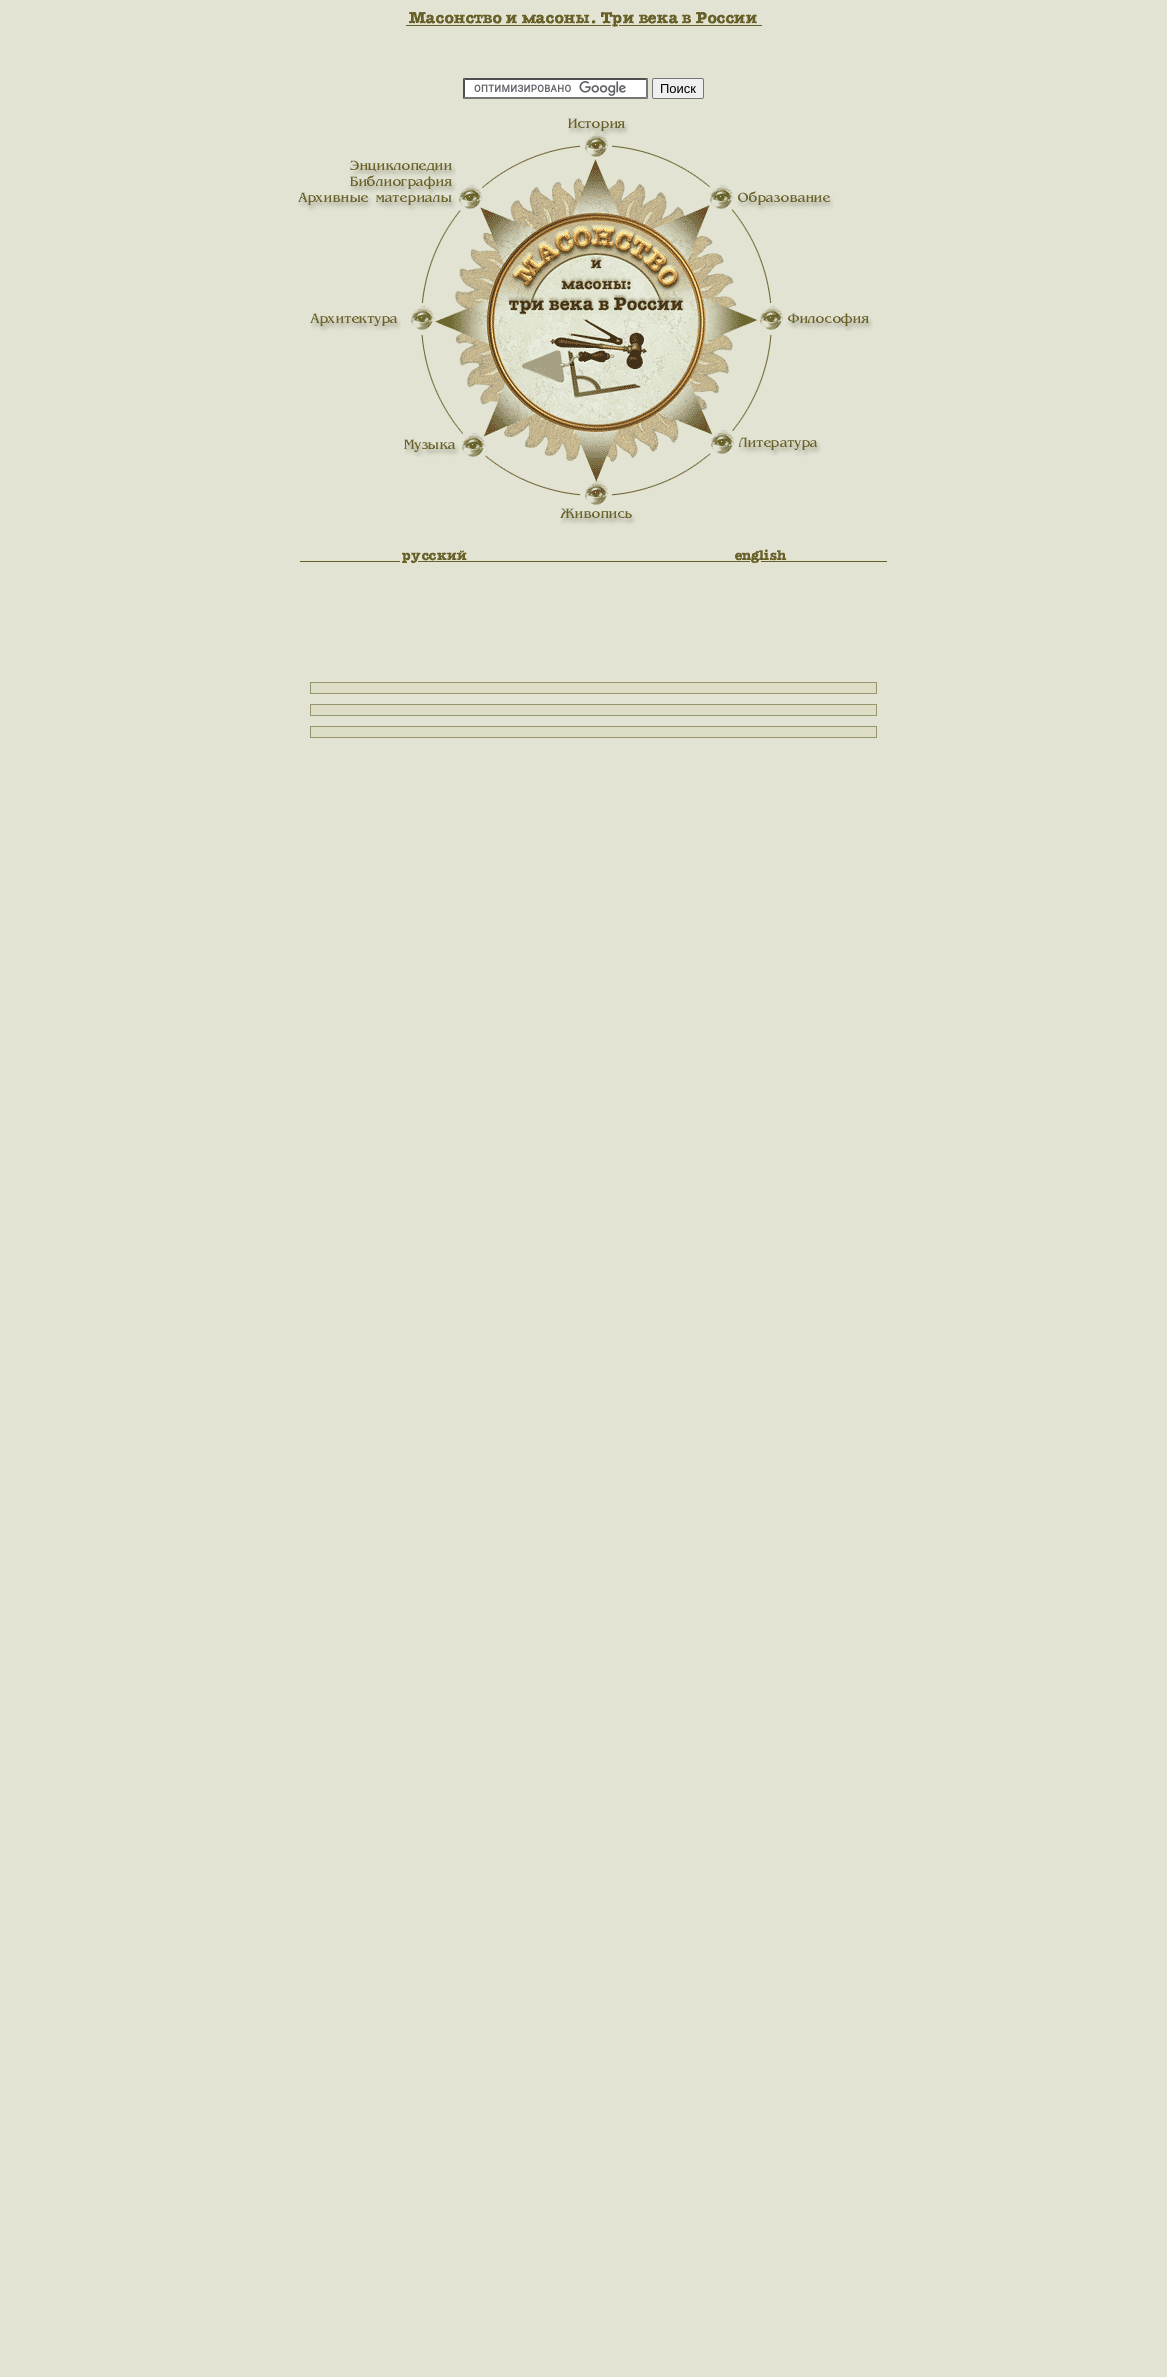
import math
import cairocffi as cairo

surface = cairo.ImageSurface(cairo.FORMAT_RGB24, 1167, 2377)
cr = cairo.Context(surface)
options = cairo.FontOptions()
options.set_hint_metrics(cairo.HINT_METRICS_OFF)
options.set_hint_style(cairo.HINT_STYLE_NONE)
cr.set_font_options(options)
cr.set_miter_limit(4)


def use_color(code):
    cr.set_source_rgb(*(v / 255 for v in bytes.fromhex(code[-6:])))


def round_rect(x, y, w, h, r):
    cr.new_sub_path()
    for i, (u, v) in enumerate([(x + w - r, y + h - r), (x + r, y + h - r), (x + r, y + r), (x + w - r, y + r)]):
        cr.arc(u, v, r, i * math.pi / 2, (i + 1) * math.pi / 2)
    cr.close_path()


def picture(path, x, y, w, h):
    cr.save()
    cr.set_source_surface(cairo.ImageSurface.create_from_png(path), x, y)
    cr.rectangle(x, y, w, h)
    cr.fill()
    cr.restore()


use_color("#e3e3d3")
cr.paint()
picture("img1.png", 406, 12, 356, 15)
use_color("#ffffff")
cr.rectangle(463, 78, 185, 21)
cr.fill()
picture("img2.png", 474, 81, 152, 15)
use_color("#4f4f4f")
cr.new_path()
cr.move_to(463, 78)
cr.line_to(648, 78)
cr.line_to(646, 80)
cr.line_to(465, 80)
cr.close_path()
cr.fill()
use_color("#767676")
cr.new_path()
cr.move_to(648, 78)
cr.line_to(648, 99)
cr.line_to(646, 97)
cr.line_to(646, 80)
cr.close_path()
cr.fill()
cr.new_path()
cr.move_to(648, 99)
cr.line_to(463, 99)
cr.line_to(465, 97)
cr.line_to(646, 97)
cr.close_path()
cr.fill()
use_color("#4f4f4f")
cr.new_path()
cr.move_to(463, 99)
cr.line_to(463, 78)
cr.line_to(465, 80)
cr.line_to(465, 97)
cr.close_path()
cr.fill()
use_color("#efefef")
round_rect(652.5, 78.5, 51, 20, 1.5)
cr.fill_preserve()
use_color("#767676")
cr.set_line_width(1)
cr.stroke()
cr.select_font_face("Liberation Sans")
cr.set_font_size(13)
use_color("#000000")
cr.move_to(660, 93)
cr.show_text("Поиск")
picture("img3.png", 568, 118, 61, 28)
picture("img4.png", 297, 160, 187, 53)
picture("img5.png", 484, 146, 223, 348)
picture("img6.png", 707, 184, 127, 29)
picture("img7.png", 310, 313, 91, 18)
picture("img8.png", 411, 213, 73, 216)
picture("img9.png", 707, 213, 66, 216)
picture("img10.png", 773, 305, 100, 27)
picture("img11.png", 404, 429, 80, 28)
picture("img12.png", 707, 429, 114, 28)
picture("img13.png", 560, 494, 76, 31)
use_color("#665f26")
cr.rectangle(300, 561, 98, 1)
cr.fill()
picture("img14.png", 398, 550, 70, 13)
cr.rectangle(468, 561, 264, 1)
cr.fill()
picture("img15.png", 732, 549, 57, 14)
cr.rectangle(789, 561, 98, 1)
cr.fill()
use_color("#deddc5")
cr.rectangle(310.5, 682.5, 566, 11)
cr.fill_preserve()
use_color("#98946d")
cr.stroke()
use_color("#deddc5")
cr.rectangle(310.5, 704.5, 566, 11)
cr.fill_preserve()
use_color("#98946d")
cr.stroke()
use_color("#deddc5")
cr.rectangle(310.5, 726.5, 566, 11)
cr.fill_preserve()
use_color("#98946d")
cr.stroke()
surface.write_to_png("result.png")
